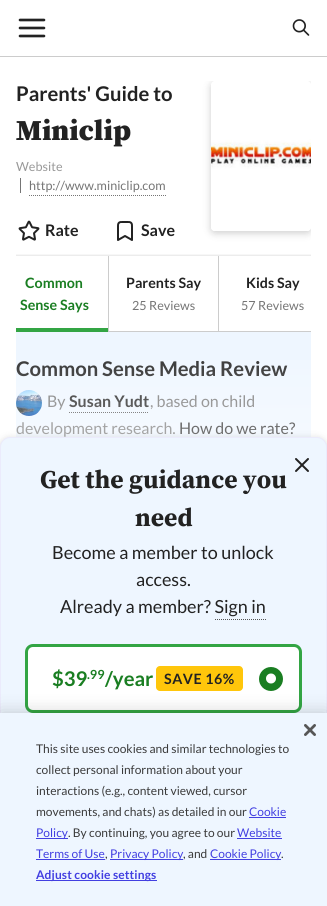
import math
import cairocffi as cairo

surface = cairo.ImageSurface(cairo.FORMAT_RGB24, 327, 906)
cr = cairo.Context(surface)
options = cairo.FontOptions()
options.set_hint_metrics(cairo.HINT_METRICS_OFF)
options.set_hint_style(cairo.HINT_STYLE_NONE)
cr.set_font_options(options)
cr.set_miter_limit(4)


def use_color(code):
    cr.set_source_rgb(*(v / 255 for v in bytes.fromhex(code[-6:])))


def spaced_text(x, y, s, letter, word):
    cr.move_to(x, y)
    for ch in s:
        cr.show_text(ch)
        cr.rel_move_to(letter + word * (ch == ' '), 0)


def round_rect(x, y, w, h, r):
    cr.new_sub_path()
    for i, (u, v) in enumerate([(x + w - r, y + h - r), (x + r, y + h - r), (x + r, y + r), (x + w - r, y + r)]):
        cr.arc(u, v, r, i * math.pi / 2, (i + 1) * math.pi / 2)
    cr.close_path()


def shadow(x, y, w, h, r, blur, alpha):
    cr.push_group_with_content(cairo.CONTENT_ALPHA)
    cr.set_operator(cairo.OPERATOR_SOURCE)
    for i in range(15, -16, -2):
        e = blur * i / 6
        if min(w, h) + 2 * e > 0:
            cr.set_source_rgba(0, 0, 0, alpha * math.erfc((i - 1) / 8.5) / 2)
            round_rect(x - e, y - e, w + 2 * e, h + 2 * e, max(0, min(r + e + blur * .6, min(w, h) / 2 + e)))
            cr.fill()
    cr.mask(cr.pop_group())


def picture(path, x, y, w, h):
    cr.save()
    cr.set_source_surface(cairo.ImageSurface.create_from_png(path), x, y)
    cr.rectangle(x, y, w, h)
    cr.fill()
    cr.restore()


use_color("#ffffff")
cr.paint()
use_color("#cccccc")
cr.rectangle(0, 56, 327, 1)
cr.fill()
picture("img1.png", 18, 18, 28, 20)
picture("img2.png", 292, 19, 18, 17)
cr.select_font_face("Lato", cairo.FONT_SLANT_NORMAL, cairo.FONT_WEIGHT_BOLD)
cr.set_font_size(20.25)
use_color("#222222")
cr.move_to(16, 101)
cr.show_text("Parents' Guide to")
cr.select_font_face("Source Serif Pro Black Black")
cr.set_font_size(29)
cr.move_to(16, 140)
cr.show_text("Miniclip")
cr.select_font_face("Lato")
cr.set_font_size(12.6)
use_color("#999999")
cr.move_to(16, 171)
cr.show_text("Website")
use_color("#757575")
cr.move_to(29, 190)
cr.show_text("http://www.miniclip.com")
cr.rectangle(20, 178, 1, 15)
cr.fill()
cr.new_path()
cr.move_to(29, 195.5)
cr.line_to(166, 195.5)
cr.set_line_width(1)
cr.set_dash([1, 1])
cr.stroke()
picture("img3.png", 18, 220, 22, 21)
cr.select_font_face("Lato", cairo.FONT_SLANT_NORMAL, cairo.FONT_WEIGHT_BOLD)
cr.set_font_size(16)
use_color("#222222")
cr.move_to(45, 236)
cr.show_text("Rate")
picture("img4.png", 117, 221, 16, 20)
cr.move_to(141, 236)
cr.show_text("Save")
cr.save()
cr.rectangle(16, 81, 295, 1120)
cr.clip()
cr.set_fill_rule(cairo.FILL_RULE_EVEN_ODD)
cr.new_path()
cr.move_to(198, 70)
cr.line_to(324, 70)
cr.line_to(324, 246)
cr.line_to(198, 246)
cr.close_path()
cr.move_to(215, 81)
cr.line_to(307, 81)
cr.curve_to(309, 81, 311, 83, 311, 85)
cr.line_to(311, 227)
cr.curve_to(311, 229, 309, 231, 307, 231)
cr.line_to(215, 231)
cr.curve_to(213, 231, 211, 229, 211, 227)
cr.line_to(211, 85)
cr.curve_to(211, 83, 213, 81, 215, 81)
cr.close_path()
cr.clip()
use_color("#000000")
shadow(211, 83, 100, 150, 4, 4, 0.2)
cr.restore()
picture("img5.png", 211, 139, 100, 92)
cr.save()
cr.rectangle(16, 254, 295, 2)
cr.clip()
use_color("#000000")
shadow(0, 256, 327, 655, 0, 1.5, 0.2)
cr.restore()
use_color("#cccccc")
cr.rectangle(108, 331, 203, 1)
cr.fill()
cr.set_font_size(14.25)
use_color("#1a7e22")
cr.move_to(25, 288)
cr.show_text("Common")
cr.move_to(20, 310)
cr.show_text("Sense Says")
use_color("#33a544")
cr.rectangle(16, 328, 92, 4)
cr.fill()
use_color("#cccccc")
cr.rectangle(108, 256, 1, 75)
cr.fill()
use_color("#222222")
cr.move_to(126, 288)
cr.show_text("Parents Say")
cr.select_font_face("Lato")
cr.set_font_size(12.6)
use_color("#757575")
cr.move_to(132, 310)
cr.show_text("25 Reviews")
use_color("#cccccc")
cr.rectangle(218, 256, 1, 75)
cr.fill()
cr.select_font_face("Lato", cairo.FONT_SLANT_NORMAL, cairo.FONT_WEIGHT_BOLD)
cr.set_font_size(14.25)
use_color("#222222")
cr.move_to(246, 288)
cr.show_text("Kids Say")
cr.select_font_face("Lato")
cr.set_font_size(12.6)
use_color("#757575")
cr.move_to(241, 310)
cr.show_text("57 Reviews")
use_color("#eef6ff")
cr.rectangle(16, 332, 295, 105)
cr.fill()
cr.select_font_face("Lato", cairo.FONT_SLANT_NORMAL, cairo.FONT_WEIGHT_BOLD)
cr.set_font_size(20.25)
use_color("#222222")
cr.move_to(16, 376)
cr.show_text("Common Sense Media Review")
picture("img6.png", 16, 390, 26, 26)
cr.select_font_face("Lato")
cr.set_font_size(16)
use_color("#757575")
cr.move_to(47, 407)
cr.show_text("By")
cr.select_font_face("Lato", cairo.FONT_SLANT_NORMAL, cairo.FONT_WEIGHT_BOLD)
use_color("#222222")
cr.move_to(69, 407)
cr.show_text("Susan Yudt")
cr.new_path()
cr.move_to(69, 412.5)
cr.line_to(149, 412.5)
use_color("#535353")
cr.stroke()
cr.select_font_face("Lato")
use_color("#757575")
cr.move_to(150, 407)
cr.show_text(", based on child")
cr.move_to(16, 434)
cr.show_text("development research.")
use_color("#222222")
cr.move_to(179, 434)
cr.show_text("How do we rate?")
gradient = cairo.LinearGradient(164, 325, 164, 506)
gradient.add_color_stop_rgba(0, 1, 1, 1, 0)
gradient.add_color_stop_rgba(1, 1, 1, 1, 0.6)
cr.set_source(gradient)
cr.rectangle(16, 360, 295, 77)
cr.fill()
use_color("#000000")
shadow(0, 439, 327, 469, 10, 4, 0.2)
use_color("#eef6ff")
cr.new_path()
cr.move_to(10, 437.5)
cr.line_to(317, 437.5)
cr.curve_to(322, 437.5, 326.5, 442, 326.5, 447)
cr.line_to(326.5, 905.5)
cr.line_to(0.5, 905.5)
cr.line_to(0.5, 447)
cr.curve_to(0.5, 442, 5, 437.5, 10, 437.5)
cr.close_path()
cr.fill_preserve()
use_color("#ebebfc")
cr.set_dash([])
cr.stroke()
picture("img7.png", 295, 458, 14, 14)
cr.select_font_face("Source Serif Pro", cairo.FONT_SLANT_NORMAL, cairo.FONT_WEIGHT_BOLD)
cr.set_font_size(25.6)
use_color("#222222")
cr.move_to(40, 488)
cr.show_text("Get the guidance you")
cr.move_to(135, 526)
cr.show_text("need")
cr.select_font_face("Lato")
cr.set_font_size(18)
cr.move_to(52, 559)
cr.show_text("Become a member to unlock")
cr.move_to(136, 586)
cr.show_text("access.")
cr.move_to(60, 613)
cr.show_text("Already a member? Sign in")
cr.new_path()
cr.move_to(215, 619.5)
cr.line_to(267, 619.5)
use_color("#535353")
cr.set_dash([1, 1])
cr.stroke()
use_color("#ffffff")
round_rect(26.5, 645.5, 274, 66, 6.5)
cr.fill_preserve()
use_color("#33a544")
cr.set_line_width(3)
cr.set_dash([])
cr.stroke()
cr.select_font_face("Lato", cairo.FONT_SLANT_NORMAL, cairo.FONT_WEIGHT_BOLD)
cr.set_font_size(20.25)
use_color("#1a7e22")
cr.move_to(52, 686)
cr.show_text("$39")
cr.move_to(105, 686)
cr.show_text("/year")
cr.set_font_size(12.6)
cr.move_to(87, 679)
cr.show_text(".99")
use_color("#ffc60b")
round_rect(156, 666, 87, 25, 4)
cr.fill()
cr.set_font_size(14.25)
use_color("#222222")
spaced_text(164, 684, "SAVE 16%", 0.5, 0)
use_color("#1a7e22")
cr.new_path()
cr.arc(271, 679, 12, 0, 2 * math.pi)
cr.fill()
picture("img8.png", 266, 673, 10, 11)
use_color("#000000")
shadow(0, 713, 327, 193, 0, 9, 0.2)
use_color("#eef6ff")
cr.rectangle(0, 713, 327, 193)
cr.fill()
picture("img9.png", 304, 724, 12, 12)
cr.select_font_face("Lato")
cr.set_font_size(12)
use_color("#3a3a3a")
cr.move_to(36, 753)
cr.show_text("This site uses cookies and similar technologies to")
cr.move_to(36, 774)
cr.show_text("collect personal information about your")
cr.move_to(36, 795)
cr.show_text("interactions (e.g., content viewed, cursor")
cr.move_to(36, 816)
cr.show_text("movements, and chats) as detailed in our")
use_color("#423fe1")
cr.move_to(249, 816)
cr.show_text("Cookie")
cr.rectangle(249, 817, 37, 1)
cr.fill()
cr.rectangle(36, 838, 32, 1)
cr.fill()
cr.move_to(36, 837)
cr.show_text("Policy")
use_color("#3a3a3a")
cr.move_to(68, 837)
cr.show_text(". By continuing, you agree to our")
use_color("#423fe1")
cr.rectangle(237, 838, 45, 1)
cr.fill()
cr.move_to(237, 837)
cr.show_text("Website")
cr.move_to(36, 858)
cr.show_text("Terms of Use")
use_color("#3a3a3a")
cr.move_to(105, 858)
cr.show_text(",")
use_color("#423fe1")
cr.rectangle(36, 859, 69, 1)
cr.fill()
cr.rectangle(110, 859, 73, 1)
cr.fill()
cr.move_to(110, 858)
cr.show_text("Privacy Policy")
use_color("#3a3a3a")
cr.move_to(183, 858)
cr.show_text(", and")
use_color("#423fe1")
cr.rectangle(210, 859, 71, 1)
cr.fill()
cr.move_to(210, 858)
cr.show_text("Cookie Policy")
use_color("#3a3a3a")
cr.move_to(281, 858)
cr.show_text(".")
use_color("#423fe1")
cr.rectangle(36, 880, 121, 1)
cr.fill()
cr.select_font_face("Lato", cairo.FONT_SLANT_NORMAL, cairo.FONT_WEIGHT_BOLD)
spaced_text(36, 879, "Adjust cookie settings", 0.1, 0)
surface.write_to_png("result.png")
